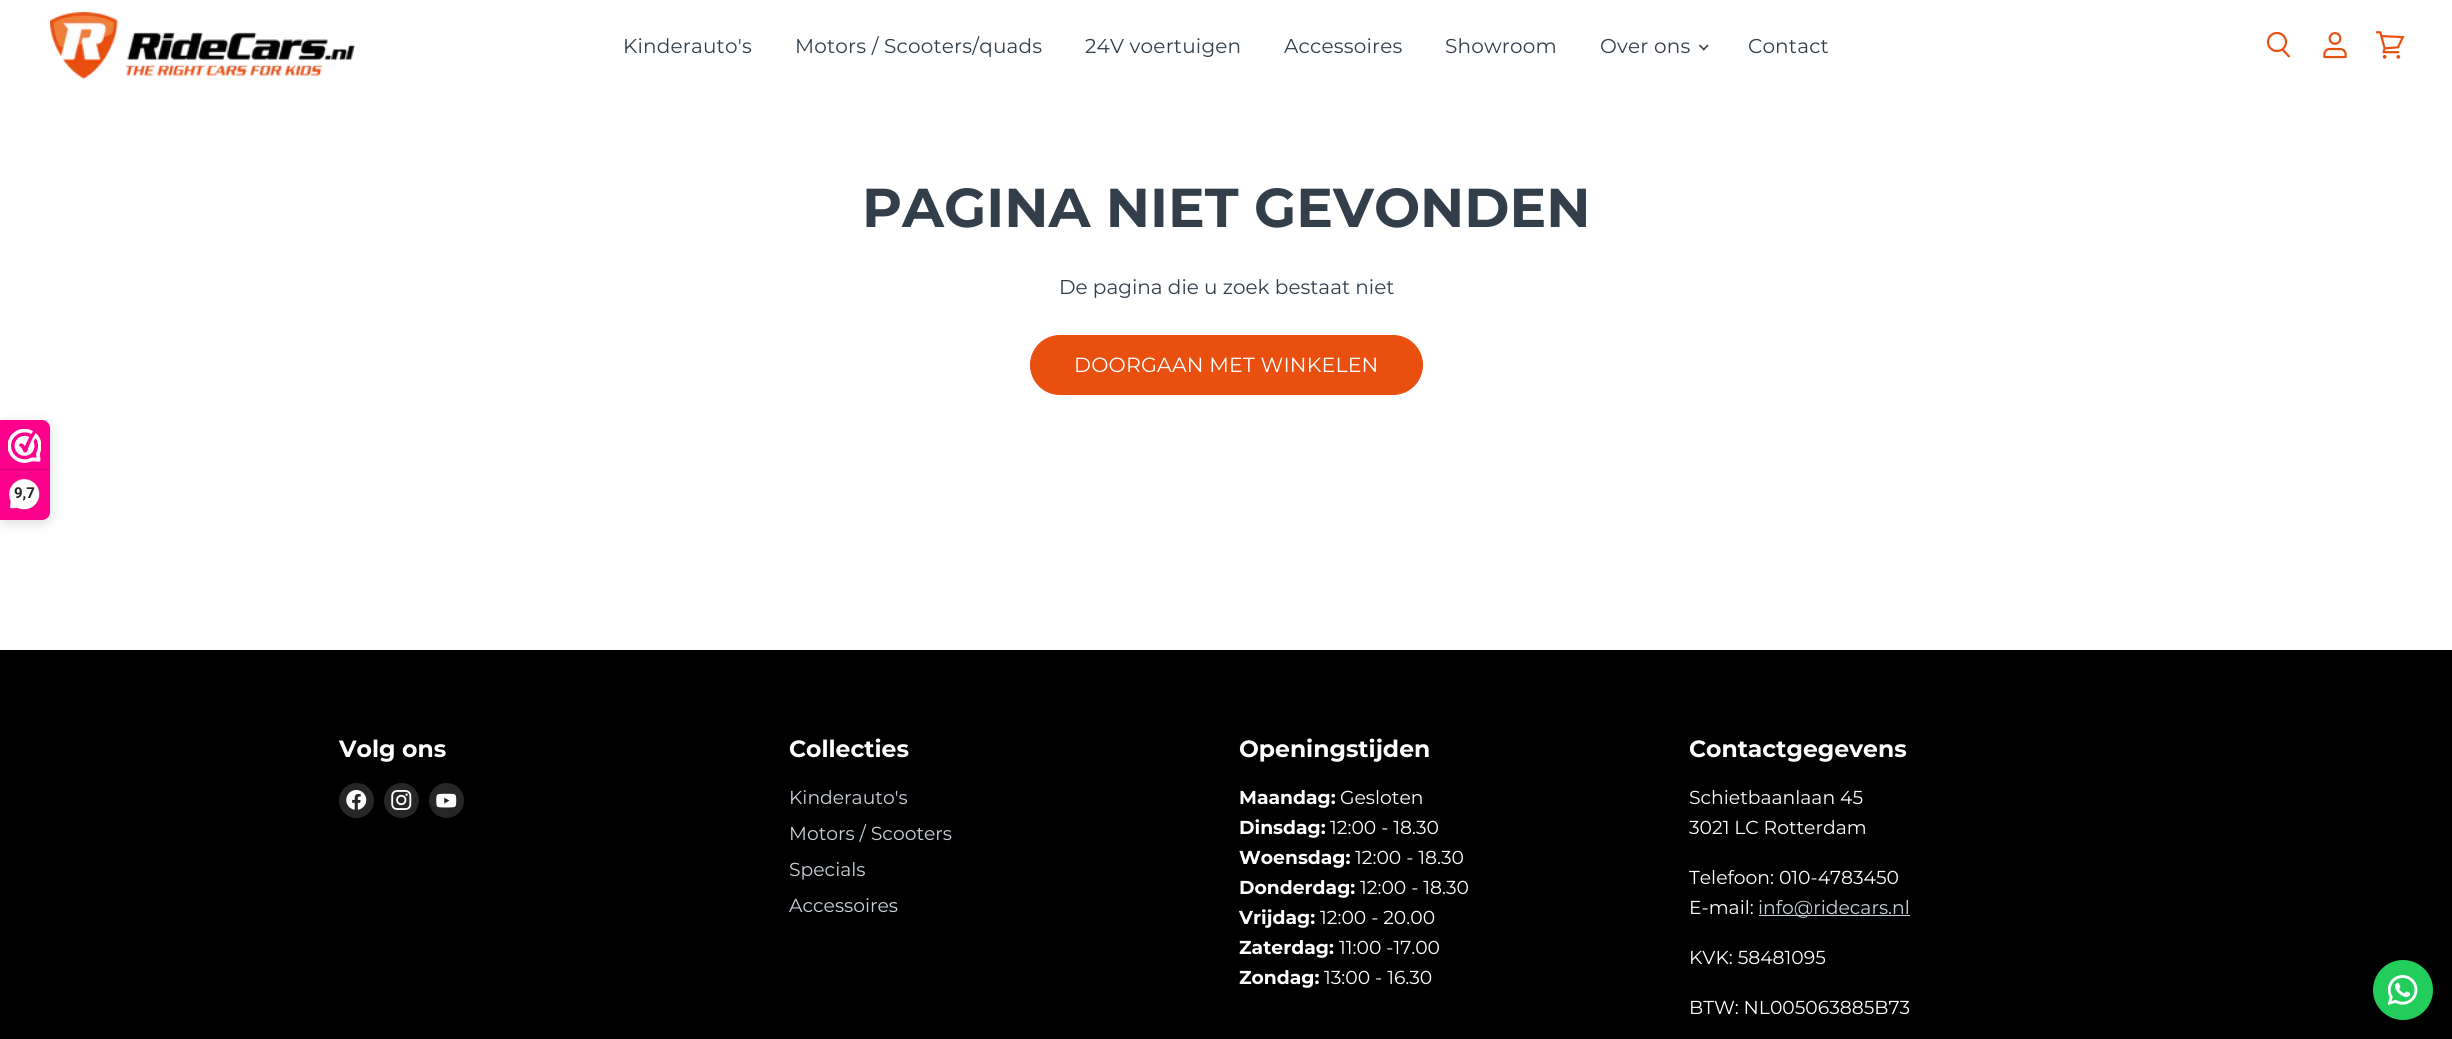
import math
import cairocffi as cairo

surface = cairo.ImageSurface(cairo.FORMAT_RGB24, 2452, 1039)
cr = cairo.Context(surface)
options = cairo.FontOptions()
options.set_hint_metrics(cairo.HINT_METRICS_OFF)
options.set_hint_style(cairo.HINT_STYLE_NONE)
cr.set_font_options(options)
cr.set_miter_limit(4)


def use_color(code):
    cr.set_source_rgb(*(v / 255 for v in bytes.fromhex(code[-6:])))


def spaced_text(x, y, s, letter, word):
    cr.move_to(x, y)
    for ch in s:
        cr.show_text(ch)
        cr.rel_move_to(letter + word * (ch == ' '), 0)


def round_rect(x, y, w, h, r):
    cr.new_sub_path()
    for i, (u, v) in enumerate([(x + w - r, y + h - r), (x + r, y + h - r), (x + r, y + r), (x + w - r, y + r)]):
        cr.arc(u, v, r, i * math.pi / 2, (i + 1) * math.pi / 2)
    cr.close_path()


def shadow(x, y, w, h, r, blur, alpha):
    cr.push_group_with_content(cairo.CONTENT_ALPHA)
    cr.set_operator(cairo.OPERATOR_SOURCE)
    for i in range(15, -16, -2):
        e = blur * i / 6
        if min(w, h) + 2 * e > 0:
            cr.set_source_rgba(0, 0, 0, alpha * math.erfc((i - 1) / 8.5) / 2)
            round_rect(x - e, y - e, w + 2 * e, h + 2 * e, max(0, min(r + e + blur * .6, min(w, h) / 2 + e)))
            cr.fill()
    cr.mask(cr.pop_group())


def picture(path, x, y, w, h):
    cr.save()
    cr.set_source_surface(cairo.ImageSurface.create_from_png(path), x, y)
    cr.rectangle(x, y, w, h)
    cr.fill()
    cr.restore()


use_color("#ffffff")
cr.paint()
picture("img1.png", 50, 12, 305, 68)
cr.select_font_face("Montserrat")
cr.set_font_size(20)
use_color("#323f4b")
spaced_text(623, 53, "Kinderauto's", 0.2, 0)
spaced_text(795, 53, "Motors / Scooters/quads", 0.2, 0)
spaced_text(1085, 53, "24V voertuigen", 0.2, 0)
spaced_text(1284, 53, "Accessoires", 0.2, 0)
spaced_text(1445, 53, "Showroom", 0.2, 0)
spaced_text(1600, 53, "Over ons", 0.2, 0)
picture("img2.png", 1699, 44, 10, 7)
spaced_text(1748, 53, "Contact", 0.2, 0)
cr.new_path()
cr.move_to(2289.5, 57)
cr.line_to(2282, 49)
use_color("#e94f0f")
cr.set_line_width(2.2)
cr.stroke()
cr.arc(2277, 42, 9, 0, 2 * math.pi)
cr.stroke()
picture("img3.png", 2323, 32, 24, 27)
picture("img4.png", 2376, 31, 29, 28)
cr.select_font_face("Montserrat", cairo.FONT_SLANT_NORMAL, cairo.FONT_WEIGHT_BOLD)
cr.set_font_size(54.75)
use_color("#323f4b")
cr.move_to(862, 227)
cr.show_text("PAGINA NIET GEVONDEN")
cr.select_font_face("Montserrat")
cr.set_font_size(20)
cr.move_to(1059, 294)
cr.show_text("De pagina die u zoek bestaat niet")
use_color("#e94f0f")
round_rect(1030.5, 335.5, 392, 59, 29.5)
cr.fill_preserve()
cr.set_line_width(1)
cr.stroke()
cr.set_font_size(20.5)
use_color("#ffffff")
spaced_text(1074, 372, "DOORGAAN MET WINKELEN", 0.2, 0)
use_color("#000000")
shadow(0, 423, 50, 100, 8, 6, 0.15)
use_color("#fe008c")
cr.new_path()
cr.move_to(0, 420)
cr.line_to(42, 420)
cr.curve_to(46.5, 420, 50, 423.5, 50, 428)
cr.line_to(50, 512)
cr.curve_to(50, 516.5, 46.5, 520, 42, 520)
cr.line_to(0, 520)
cr.close_path()
cr.fill()
picture("img5.png", 8, 429, 33, 34)
use_color("#d80077")
cr.rectangle(0, 469, 49, 1)
cr.fill()
picture("img6.png", 9, 479, 31, 31)
cr.select_font_face("Roboto", cairo.FONT_SLANT_NORMAL, cairo.FONT_WEIGHT_BOLD)
cr.set_font_size(15)
use_color("#272626")
cr.move_to(14, 498)
cr.show_text("9,7")
use_color("#000000")
cr.rectangle(0, 650, 2452, 389)
cr.fill()
cr.select_font_face("Montserrat", cairo.FONT_SLANT_NORMAL, cairo.FONT_WEIGHT_BOLD)
cr.set_font_size(23.5)
use_color("#ffffff")
cr.move_to(339, 757)
cr.show_text("Volg ons")
use_color("#262626")
cr.new_path()
cr.arc(356.5, 800.5, 17.5, 0, 2 * math.pi)
cr.fill()
picture("img7.png", 346, 790, 21, 20)
cr.arc(401.5, 800.5, 17.5, 0, 2 * math.pi)
cr.fill()
picture("img8.png", 391, 790, 21, 20)
cr.arc(446.5, 800.5, 17.5, 0, 2 * math.pi)
cr.fill()
picture("img9.png", 436, 793, 21, 15)
use_color("#ffffff")
cr.move_to(789, 757)
cr.show_text("Collecties")
cr.select_font_face("Montserrat")
cr.set_font_size(18.75)
use_color("#cbd2d9")
cr.move_to(789, 804)
cr.show_text("Kinderauto's")
cr.move_to(789, 840)
cr.show_text("Motors / Scooters")
cr.move_to(789, 876)
cr.show_text("Specials")
cr.move_to(789, 912)
cr.show_text("Accessoires")
cr.select_font_face("Montserrat", cairo.FONT_SLANT_NORMAL, cairo.FONT_WEIGHT_BOLD)
cr.set_font_size(23.5)
use_color("#ffffff")
cr.move_to(1239, 757)
cr.show_text("Openingstijden")
cr.set_font_size(18.75)
cr.move_to(1239, 804)
cr.show_text("Maandag:")
cr.select_font_face("Montserrat")
cr.move_to(1340, 804)
cr.show_text("Gesloten")
cr.select_font_face("Montserrat", cairo.FONT_SLANT_NORMAL, cairo.FONT_WEIGHT_BOLD)
cr.move_to(1239, 834)
cr.show_text("Dinsdag:")
cr.select_font_face("Montserrat")
cr.move_to(1330, 834)
cr.show_text("12:00 - 18.30")
cr.select_font_face("Montserrat", cairo.FONT_SLANT_NORMAL, cairo.FONT_WEIGHT_BOLD)
cr.move_to(1239, 864)
cr.show_text("Woensdag:")
cr.select_font_face("Montserrat")
cr.move_to(1355, 864)
cr.show_text("12:00 - 18.30")
cr.select_font_face("Montserrat", cairo.FONT_SLANT_NORMAL, cairo.FONT_WEIGHT_BOLD)
cr.move_to(1239, 894)
cr.show_text("Donderdag:")
cr.select_font_face("Montserrat")
cr.move_to(1360, 894)
cr.show_text("12:00 - 18.30")
cr.select_font_face("Montserrat", cairo.FONT_SLANT_NORMAL, cairo.FONT_WEIGHT_BOLD)
cr.move_to(1239, 924)
cr.show_text("Vrijdag:")
cr.select_font_face("Montserrat")
cr.move_to(1320, 924)
cr.show_text("12:00 - 20.00")
cr.select_font_face("Montserrat", cairo.FONT_SLANT_NORMAL, cairo.FONT_WEIGHT_BOLD)
cr.move_to(1239, 954)
cr.show_text("Zaterdag:")
cr.select_font_face("Montserrat")
cr.move_to(1339, 954)
cr.show_text("11:00 -17.00")
cr.select_font_face("Montserrat", cairo.FONT_SLANT_NORMAL, cairo.FONT_WEIGHT_BOLD)
cr.move_to(1239, 984)
cr.show_text("Zondag:")
cr.select_font_face("Montserrat")
cr.move_to(1324, 984)
cr.show_text("13:00 - 16.30")
cr.select_font_face("Montserrat", cairo.FONT_SLANT_NORMAL, cairo.FONT_WEIGHT_BOLD)
cr.set_font_size(23.5)
cr.move_to(1689, 757)
cr.show_text("Contactgegevens")
cr.select_font_face("Montserrat")
cr.set_font_size(18.75)
cr.move_to(1689, 804)
cr.show_text("Schietbaanlaan 45")
cr.move_to(1689, 834)
cr.show_text("3021 LC Rotterdam")
cr.move_to(1689, 884)
cr.show_text("Telefoon: 010-4783450")
cr.move_to(1689, 914)
cr.show_text("E-mail:")
use_color("#cbd2d9")
cr.rectangle(1759, 915, 151, 1)
cr.fill()
cr.move_to(1758, 914)
cr.show_text("info@ridecars.nl")
use_color("#ffffff")
cr.move_to(1689, 964)
cr.show_text("KVK: 58481095")
cr.move_to(1689, 1014)
cr.show_text("BTW: NL005063885B73")
use_color("#22cd5b")
cr.new_path()
cr.arc(2403, 990, 30, 0, 2 * math.pi)
cr.fill()
picture("img10.png", 2388, 975, 30, 30)
surface.write_to_png("result.png")
